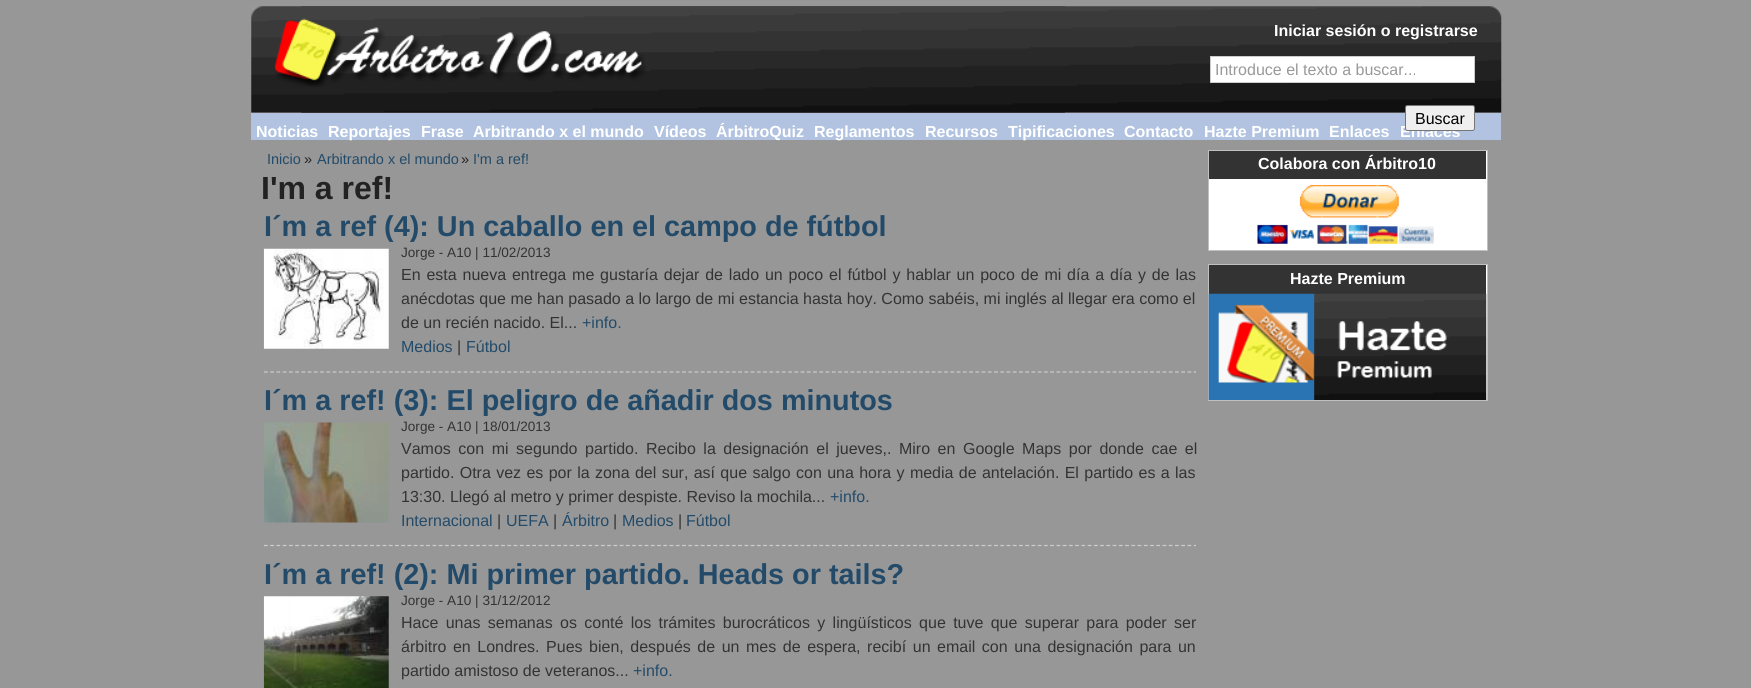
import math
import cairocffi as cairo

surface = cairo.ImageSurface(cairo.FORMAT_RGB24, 1751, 688)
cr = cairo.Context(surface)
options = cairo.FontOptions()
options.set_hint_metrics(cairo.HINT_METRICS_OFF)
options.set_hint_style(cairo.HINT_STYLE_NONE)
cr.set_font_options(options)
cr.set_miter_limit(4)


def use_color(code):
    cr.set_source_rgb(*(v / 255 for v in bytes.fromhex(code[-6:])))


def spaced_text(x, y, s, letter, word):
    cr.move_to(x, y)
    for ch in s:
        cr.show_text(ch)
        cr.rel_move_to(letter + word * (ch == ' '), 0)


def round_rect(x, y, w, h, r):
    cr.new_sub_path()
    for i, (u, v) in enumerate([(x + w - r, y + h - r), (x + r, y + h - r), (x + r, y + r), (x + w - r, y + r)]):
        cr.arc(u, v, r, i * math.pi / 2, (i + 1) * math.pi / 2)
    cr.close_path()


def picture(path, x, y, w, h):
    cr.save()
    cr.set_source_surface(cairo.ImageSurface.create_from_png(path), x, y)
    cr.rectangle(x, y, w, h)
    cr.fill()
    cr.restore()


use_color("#979797")
cr.paint()
picture("img1.png", 301, 6, 1201, 107)
picture("img2.png", 251, 6, 814, 107)
picture("img3.png", 274, 18, 372, 69)
cr.select_font_face("Liberation Sans", cairo.FONT_SLANT_NORMAL, cairo.FONT_WEIGHT_BOLD)
cr.set_font_size(16)
use_color("#ffffff")
cr.move_to(1274, 36)
cr.show_text("Iniciar sesión o registrarse")
cr.rectangle(1210.5, 56.5, 264, 26)
cr.fill_preserve()
use_color("#cccccc")
cr.set_line_width(1)
cr.stroke()
cr.select_font_face("Liberation Sans")
use_color("#999999")
cr.move_to(1215, 75)
cr.show_text("Introduce el texto a buscar...")
use_color("#b1c3e1")
cr.rectangle(251, 113, 1250, 27)
cr.fill()
cr.select_font_face("Liberation Sans", cairo.FONT_SLANT_NORMAL, cairo.FONT_WEIGHT_BOLD)
use_color("#ffffff")
cr.move_to(1400, 137)
cr.show_text("Enlaces")
use_color("#efefef")
round_rect(1405.5, 105.5, 69, 25, 2)
cr.fill_preserve()
use_color("#767676")
cr.stroke()
cr.select_font_face("Liberation Sans")
use_color("#000000")
cr.move_to(1415, 124)
cr.show_text("Buscar")
cr.select_font_face("Liberation Sans", cairo.FONT_SLANT_NORMAL, cairo.FONT_WEIGHT_BOLD)
use_color("#ffffff")
cr.move_to(256, 137)
cr.show_text("Noticias")
cr.move_to(328, 137)
cr.show_text("Reportajes")
cr.move_to(421, 137)
cr.show_text("Frase")
cr.move_to(473, 137)
cr.show_text("Arbitrando x el mundo")
cr.move_to(654, 137)
cr.show_text("Vídeos")
cr.move_to(716, 137)
cr.show_text("ÁrbitroQuiz")
cr.move_to(814, 137)
cr.show_text("Reglamentos")
cr.move_to(925, 137)
cr.show_text("Recursos")
cr.move_to(1008, 137)
cr.show_text("Tipificaciones")
cr.move_to(1124, 137)
cr.show_text("Contacto")
cr.move_to(1204, 137)
cr.show_text("Hazte Premium")
cr.move_to(1329, 137)
cr.show_text("Enlaces")
cr.select_font_face("Liberation Sans")
cr.set_font_size(14.5)
use_color("#234b69")
cr.move_to(267, 164)
cr.show_text("Inicio")
use_color("#222222")
cr.move_to(304, 164)
cr.show_text("»")
use_color("#234b69")
cr.move_to(317, 164)
cr.show_text("Arbitrando x el mundo")
use_color("#222222")
cr.move_to(461, 164)
cr.show_text("»")
use_color("#234b69")
cr.move_to(473, 164)
cr.show_text("I'm a ref!")
cr.select_font_face("Liberation Sans", cairo.FONT_SLANT_NORMAL, cairo.FONT_WEIGHT_BOLD)
cr.set_font_size(32)
use_color("#222222")
cr.move_to(261, 199)
cr.show_text("I'm a ref!")
cr.new_path()
cr.move_to(264, 372)
cr.line_to(1196, 372)
use_color("#cccccc")
cr.set_line_width(1.2)
cr.set_dash([3.75, 2.49])
cr.stroke()
cr.set_font_size(28.8)
use_color("#234b69")
cr.move_to(264, 236)
cr.show_text("I´m a ref (4): Un caballo en el campo de fútbol")
picture("img4.png", 263, 248, 126, 101)
cr.select_font_face("Liberation Sans")
cr.set_font_size(13.6)
use_color("#333333")
cr.move_to(401, 257)
cr.show_text("Jorge - A10 | 11/02/2013")
cr.set_font_size(16)
spaced_text(401, 280, "En esta nueva entrega me gustaría dejar de lado un poco el fútbol y hablar un poco de mi día a día y de las", 0, 1.4)
cr.move_to(401, 304)
cr.show_text("anécdotas que me han pasado a lo largo de mi estancia hasta hoy. Como sabéis, mi inglés al llegar era como el")
cr.move_to(401, 328)
cr.show_text("de un recién nacido. El...")
use_color("#234b69")
cr.move_to(582, 328)
cr.show_text("+info.")
cr.move_to(401, 352)
cr.show_text("Medios")
use_color("#333333")
cr.move_to(457, 352)
cr.show_text("|")
use_color("#234b69")
cr.move_to(466, 352)
cr.show_text("Fútbol")
cr.new_path()
cr.move_to(264, 545.5)
cr.line_to(1196, 545.5)
use_color("#cccccc")
cr.stroke()
cr.select_font_face("Liberation Sans", cairo.FONT_SLANT_NORMAL, cairo.FONT_WEIGHT_BOLD)
cr.set_font_size(28.8)
use_color("#234b69")
cr.move_to(264, 410)
cr.show_text("I´m a ref! (3): El peligro de añadir dos minutos")
picture("img5.png", 264, 422, 125, 101)
cr.select_font_face("Liberation Sans")
cr.set_font_size(13.6)
use_color("#333333")
cr.move_to(401, 431)
cr.show_text("Jorge - A10 | 18/01/2013")
cr.set_font_size(16)
spaced_text(401, 454, "Vamos con mi segundo partido. Recibo la designación el jueves,. Miro en Google Maps por donde cae el", 0, 3.1)
spaced_text(401, 478, "partido. Otra vez es por la zona del sur, así que salgo con una hora y media de antelación. El partido es a las", 0, 0.9)
cr.move_to(401, 502)
cr.show_text("13:30. Llegó al metro y primer despiste. Reviso la mochila...")
use_color("#234b69")
cr.move_to(830, 502)
cr.show_text("+info.")
cr.move_to(401, 526)
cr.show_text("Internacional")
use_color("#333333")
cr.move_to(497, 526)
cr.show_text("|")
use_color("#234b69")
cr.move_to(506, 526)
cr.show_text("UEFA")
use_color("#333333")
cr.move_to(553, 526)
cr.show_text("|")
use_color("#234b69")
cr.move_to(562, 526)
cr.show_text("Árbitro")
use_color("#333333")
cr.move_to(613, 526)
cr.show_text("|")
use_color("#234b69")
cr.move_to(622, 526)
cr.show_text("Medios")
use_color("#333333")
cr.move_to(678, 526)
cr.show_text("|")
use_color("#234b69")
cr.move_to(686, 526)
cr.show_text("Fútbol")
cr.select_font_face("Liberation Sans", cairo.FONT_SLANT_NORMAL, cairo.FONT_WEIGHT_BOLD)
cr.set_font_size(28.8)
cr.move_to(264, 584)
cr.show_text("I´m a ref! (2): Mi primer partido. Heads or tails?")
picture("img6.png", 263, 596, 126, 92)
cr.select_font_face("Liberation Sans")
cr.set_font_size(13.6)
use_color("#333333")
cr.move_to(401, 605)
cr.show_text("Jorge - A10 | 31/12/2012")
cr.set_font_size(16)
spaced_text(401, 628, "Hace unas semanas os conté los trámites burocráticos y lingüísticos que tuve que superar para poder ser", 0, 2.9)
spaced_text(401, 652, "árbitro en Londres. Pues bien, después de un mes de espera, recibí un email con una designación para un", 0, 2.1)
cr.move_to(401, 676)
cr.show_text("partido amistoso de veteranos...")
use_color("#234b69")
cr.move_to(633, 676)
cr.show_text("+info.")
use_color("#ffffff")
cr.rectangle(1208.5, 150.5, 279, 100)
cr.fill_preserve()
use_color("#c0c0c0")
cr.set_line_width(1)
cr.set_dash([])
cr.stroke()
use_color("#333333")
cr.rectangle(1209, 151, 277, 28)
cr.fill()
cr.select_font_face("Liberation Sans", cairo.FONT_SLANT_NORMAL, cairo.FONT_WEIGHT_BOLD)
use_color("#ffffff")
cr.move_to(1258, 169)
cr.show_text("Colabora con Árbitro10")
picture("img7.png", 1257, 185, 177, 59)
cr.rectangle(1486, 265, 1, 135)
cr.fill()
cr.rectangle(1208.5, 264.5, 279, 136)
use_color("#c0c0c0")
cr.stroke()
use_color("#333333")
cr.rectangle(1209, 265, 277, 29)
cr.fill()
use_color("#ffffff")
cr.move_to(1290, 284)
cr.show_text("Hazte Premium")
picture("img8.png", 1208, 293, 279, 107)
surface.write_to_png("result.png")
